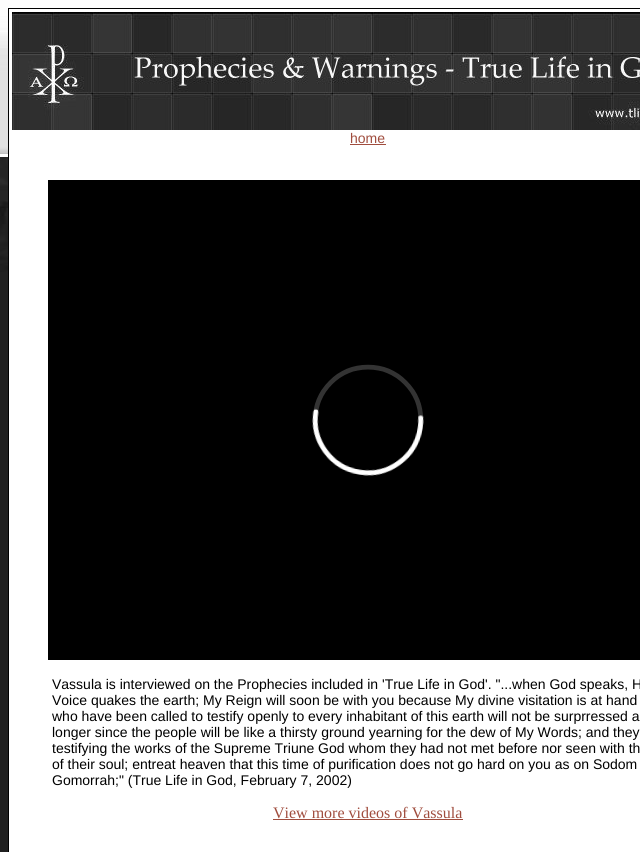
import math
import cairocffi as cairo

surface = cairo.ImageSurface(cairo.FORMAT_RGB24, 640, 852)
cr = cairo.Context(surface)
options = cairo.FontOptions()
options.set_hint_metrics(cairo.HINT_METRICS_OFF)
options.set_hint_style(cairo.HINT_STYLE_NONE)
cr.set_font_options(options)
cr.set_miter_limit(4)


def use_color(code):
    cr.set_source_rgb(*(v / 255 for v in bytes.fromhex(code[-6:])))


def picture(path, x, y, w, h):
    cr.save()
    cr.set_source_surface(cairo.ImageSurface.create_from_png(path), x, y)
    cr.rectangle(x, y, w, h)
    cr.fill()
    cr.restore()


use_color("#202020")
cr.paint()
picture("img1.png", 0, 0, 640, 280)
use_color("#000000")
cr.rectangle(8, 8, 632, 844)
cr.fill()
use_color("#ffffff")
cr.rectangle(9, 9, 631, 843)
cr.fill()
picture("img2.png", 12, 12, 628, 118)
cr.select_font_face("Liberation Sans")
cr.set_font_size(14)
use_color("#a04d3e")
cr.move_to(350, 143)
cr.show_text("home")
cr.rectangle(350, 144, 36, 1)
cr.fill()
picture("img3.png", 48, 180, 592, 480)
use_color("#000000")
cr.move_to(52, 689)
cr.show_text("Vassula is interviewed on the Prophecies included in 'True Life in God'. \"...when God speaks, H")
cr.move_to(52, 705)
cr.show_text("Voice quakes the earth; My Reign will soon be with you because My divine visitation is at hand")
cr.move_to(52, 721)
cr.show_text("who have been called to testify openly to every inhabitant of this earth will not be surprressed a")
cr.move_to(52, 737)
cr.show_text("longer since the people will be like a thirsty ground yearning for the dew of My Words; and they")
cr.move_to(52, 753)
cr.show_text("testifying the works of the Supreme Triune God whom they had not met before nor seen with th")
cr.move_to(52, 769)
cr.show_text("of their soul; entreat heaven that this time of purification does not go hard on you as on Sodom")
cr.move_to(52, 785)
cr.show_text("Gomorrah;\" (True Life in God, February 7, 2002)")
cr.select_font_face("Liberation Serif")
cr.set_font_size(16)
use_color("#a04d3e")
cr.move_to(273, 818)
cr.show_text("View more videos of Vassula")
cr.rectangle(273, 819, 190, 1)
cr.fill()
surface.write_to_png("result.png")
